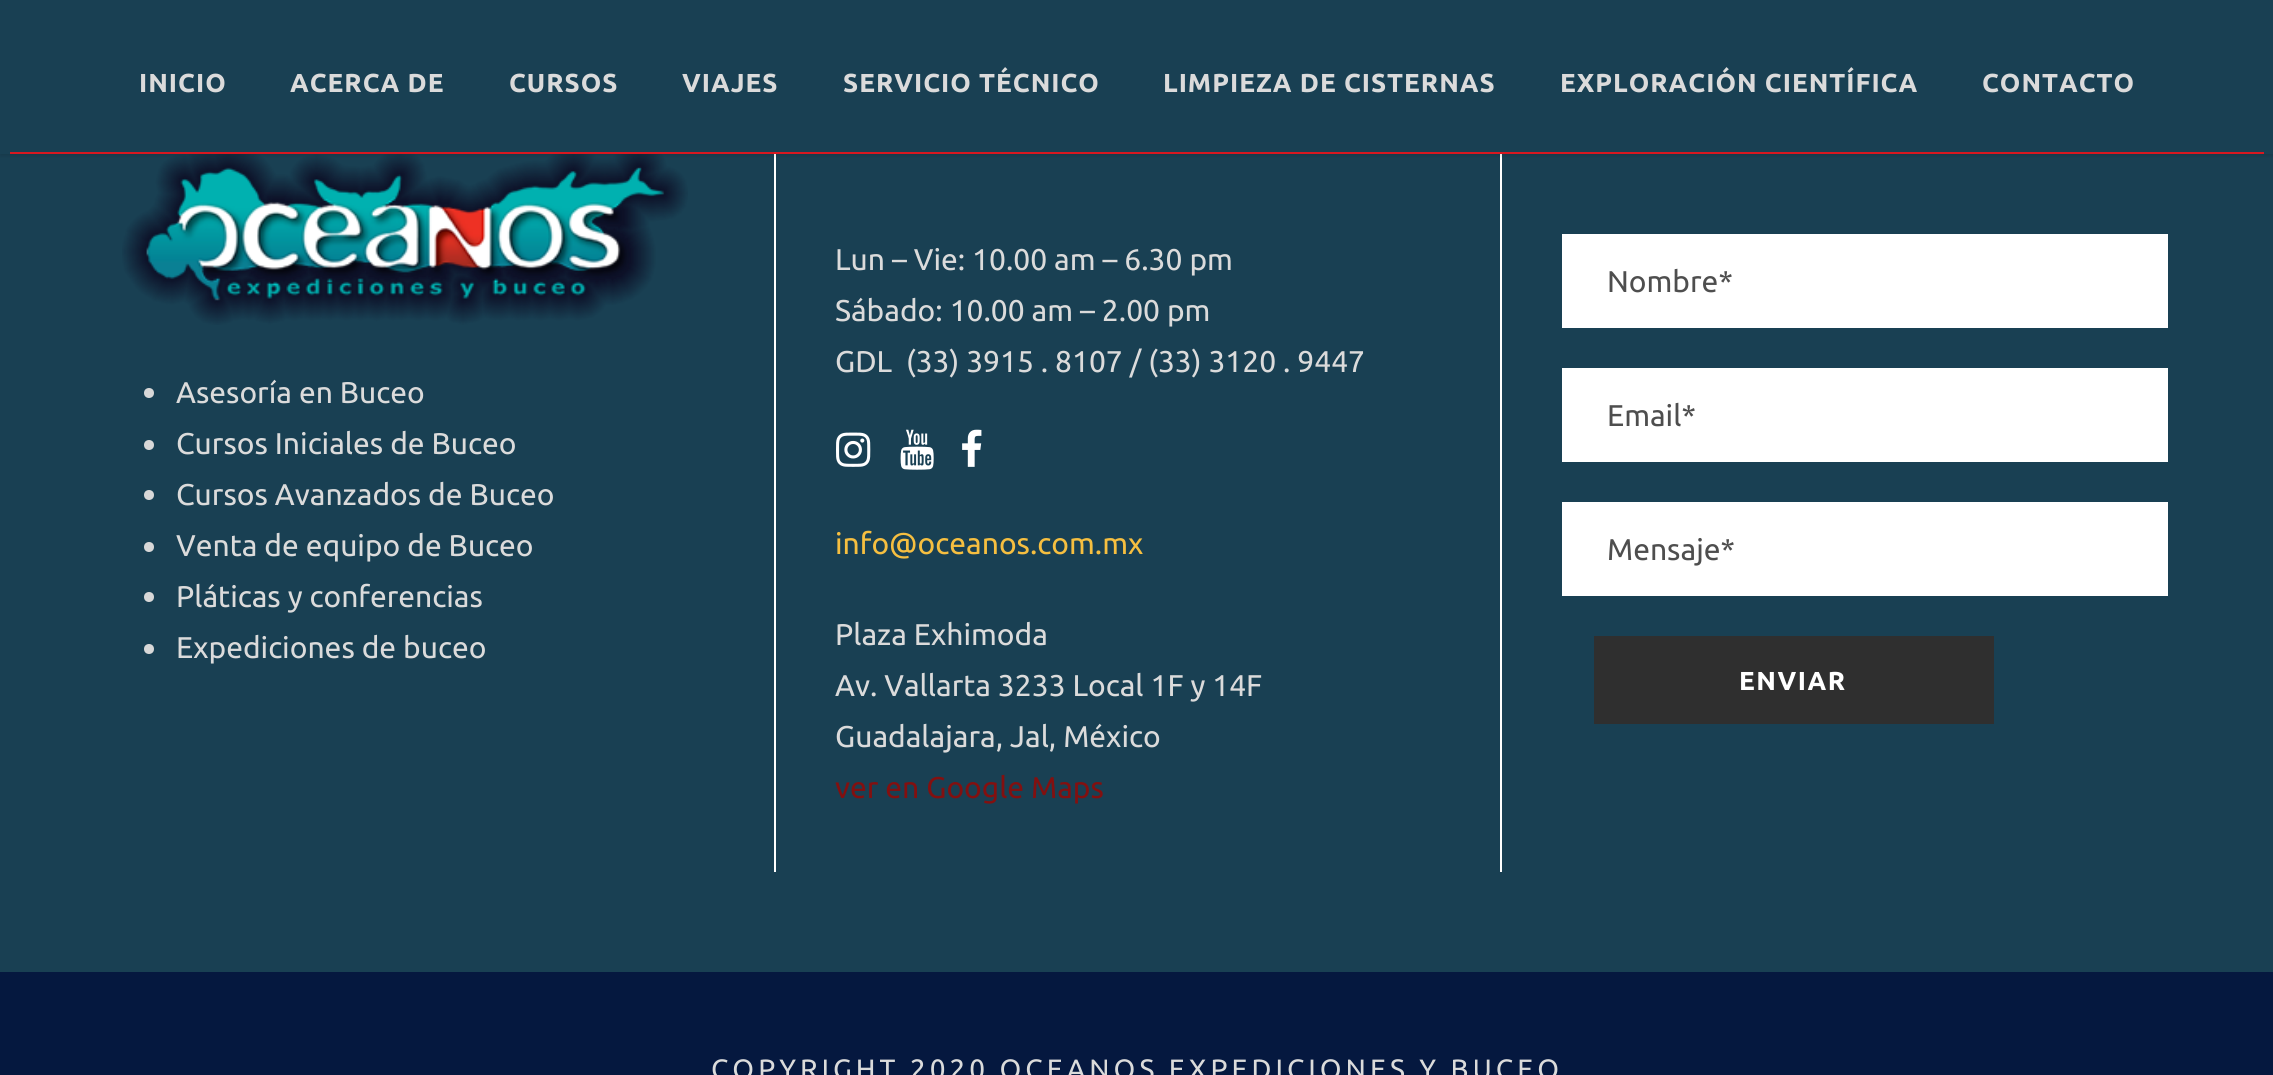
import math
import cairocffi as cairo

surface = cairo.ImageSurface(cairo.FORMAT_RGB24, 2273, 1075)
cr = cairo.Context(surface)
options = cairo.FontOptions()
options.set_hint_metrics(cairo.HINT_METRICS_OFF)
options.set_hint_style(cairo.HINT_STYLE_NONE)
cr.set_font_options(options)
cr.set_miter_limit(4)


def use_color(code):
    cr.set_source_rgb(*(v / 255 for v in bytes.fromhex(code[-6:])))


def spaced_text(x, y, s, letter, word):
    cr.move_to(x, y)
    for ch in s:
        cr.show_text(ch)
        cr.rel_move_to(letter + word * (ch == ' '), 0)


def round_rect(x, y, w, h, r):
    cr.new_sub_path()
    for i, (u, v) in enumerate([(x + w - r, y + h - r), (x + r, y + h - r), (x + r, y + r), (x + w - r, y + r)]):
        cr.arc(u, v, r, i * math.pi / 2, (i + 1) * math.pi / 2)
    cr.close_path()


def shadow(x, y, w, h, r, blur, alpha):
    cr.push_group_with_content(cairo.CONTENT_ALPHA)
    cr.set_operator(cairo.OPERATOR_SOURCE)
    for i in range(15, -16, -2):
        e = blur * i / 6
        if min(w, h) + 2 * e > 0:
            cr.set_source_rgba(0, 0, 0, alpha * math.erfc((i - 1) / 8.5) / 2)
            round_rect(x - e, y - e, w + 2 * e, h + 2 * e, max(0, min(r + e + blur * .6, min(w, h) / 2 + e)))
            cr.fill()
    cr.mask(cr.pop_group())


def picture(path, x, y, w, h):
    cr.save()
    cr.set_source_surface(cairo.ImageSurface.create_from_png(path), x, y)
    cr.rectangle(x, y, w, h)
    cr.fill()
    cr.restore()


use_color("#194053")
cr.paint()
picture("img1.png", 122, 154, 566, 171)
use_color("#ffffff")
cr.rectangle(774, 154, 2, 718)
cr.fill()
cr.rectangle(1500, 154, 2, 718)
cr.fill()
cr.save()
cr.rectangle(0, 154, 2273, 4)
cr.clip()
use_color("#000000")
shadow(0, 2, 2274, 154, 0, 2, 0.1)
cr.restore()
cr.select_font_face("Ubuntu", cairo.FONT_SLANT_NORMAL, cairo.FONT_WEIGHT_BOLD)
cr.set_font_size(26)
use_color("#dbdbdb")
spaced_text(139, 92, "INICIO", 1, 0)
spaced_text(290, 92, "ACERCA DE", 1, 0)
spaced_text(509, 92, "CURSOS", 1, 0)
spaced_text(682, 92, "VIAJES", 1, 0)
spaced_text(843, 92, "SERVICIO TÉCNICO", 1, 0)
spaced_text(1163, 92, "LIMPIEZA DE CISTERNAS", 1, 0)
spaced_text(1560, 92, "EXPLORACIÓN CIENTÍFICA", 1, 0)
spaced_text(1982, 92, "CONTACTO", 1, 0)
use_color("#d81820")
cr.rectangle(10, 152, 2254, 2)
cr.fill()
use_color("#d8d8d8")
cr.arc(149, 393, 5, 0, 2 * math.pi)
cr.fill()
cr.select_font_face("Ubuntu")
cr.set_font_size(30)
use_color("#dbdbdb")
cr.move_to(176, 403)
cr.show_text("Asesoría en Buceo")
use_color("#d8d8d8")
cr.new_path()
cr.arc(149, 445, 5, 0, 2 * math.pi)
cr.fill()
use_color("#dbdbdb")
cr.move_to(176, 454)
cr.show_text("Cursos Iniciales de Buceo")
use_color("#d8d8d8")
cr.new_path()
cr.arc(149, 495, 5, 0, 2 * math.pi)
cr.fill()
use_color("#dbdbdb")
cr.move_to(176, 505)
cr.show_text("Cursos Avanzados de Buceo")
use_color("#d8d8d8")
cr.new_path()
cr.arc(149, 547, 5, 0, 2 * math.pi)
cr.fill()
use_color("#dbdbdb")
cr.move_to(176, 556)
cr.show_text("Venta de equipo de Buceo")
use_color("#d8d8d8")
cr.new_path()
cr.arc(149, 597, 5, 0, 2 * math.pi)
cr.fill()
use_color("#dbdbdb")
cr.move_to(176, 607)
cr.show_text("Pláticas y conferencias")
use_color("#d8d8d8")
cr.new_path()
cr.arc(149, 649, 5, 0, 2 * math.pi)
cr.fill()
use_color("#dbdbdb")
cr.move_to(176, 658)
cr.show_text("Expediciones de buceo")
cr.move_to(835, 270)
cr.show_text("Lun – Vie: 10.00 am – 6.30 pm")
cr.move_to(835, 321)
cr.show_text("Sábado: 10.00 am – 2.00 pm")
cr.move_to(835, 372)
cr.show_text("GDL  (33) 3915 . 8107 / (33) 3120 . 9447")
picture("img2.png", 836, 432, 35, 35)
picture("img3.png", 900, 429, 34, 41)
picture("img4.png", 962, 429, 20, 38)
use_color("#f6bf40")
cr.move_to(835, 554)
cr.show_text("info@oceanos.com.mx")
use_color("#dbdbdb")
cr.move_to(835, 645)
cr.show_text("Plaza Exhimoda")
cr.move_to(835, 696)
cr.show_text("Av. Vallarta 3233 Local 1F y 14F")
cr.move_to(835, 747)
cr.show_text("Guadalajara, Jal, México")
use_color("#821010")
cr.move_to(835, 798)
cr.show_text("ver en Google Maps")
use_color("#ffffff")
cr.rectangle(1562, 234, 606, 94)
cr.fill()
use_color("#4e4e4e")
cr.move_to(1607, 292)
cr.show_text("Nombre*")
use_color("#ffffff")
cr.rectangle(1562, 368, 606, 94)
cr.fill()
use_color("#4e4e4e")
cr.move_to(1607, 426)
cr.show_text("Email*")
use_color("#ffffff")
cr.rectangle(1562, 502, 606, 94)
cr.fill()
use_color("#4e4e4e")
cr.move_to(1607, 560)
cr.show_text("Mensaje*")
use_color("#2f2f2f")
cr.rectangle(1594, 636, 400, 88)
cr.fill()
cr.select_font_face("Ubuntu", cairo.FONT_SLANT_NORMAL, cairo.FONT_WEIGHT_BOLD)
cr.set_font_size(26)
use_color("#ffffff")
spaced_text(1739, 690, "ENVIAR", 1.5, 0)
use_color("#05183f")
cr.rectangle(0, 972, 2273, 103)
cr.fill()
cr.select_font_face("Ubuntu")
cr.set_font_size(28)
use_color("#dbdbdb")
spaced_text(711, 1079, "COPYRIGHT 2020 OCEANOS EXPEDICIONES Y BUCEO", 4, 0)
surface.write_to_png("result.png")
